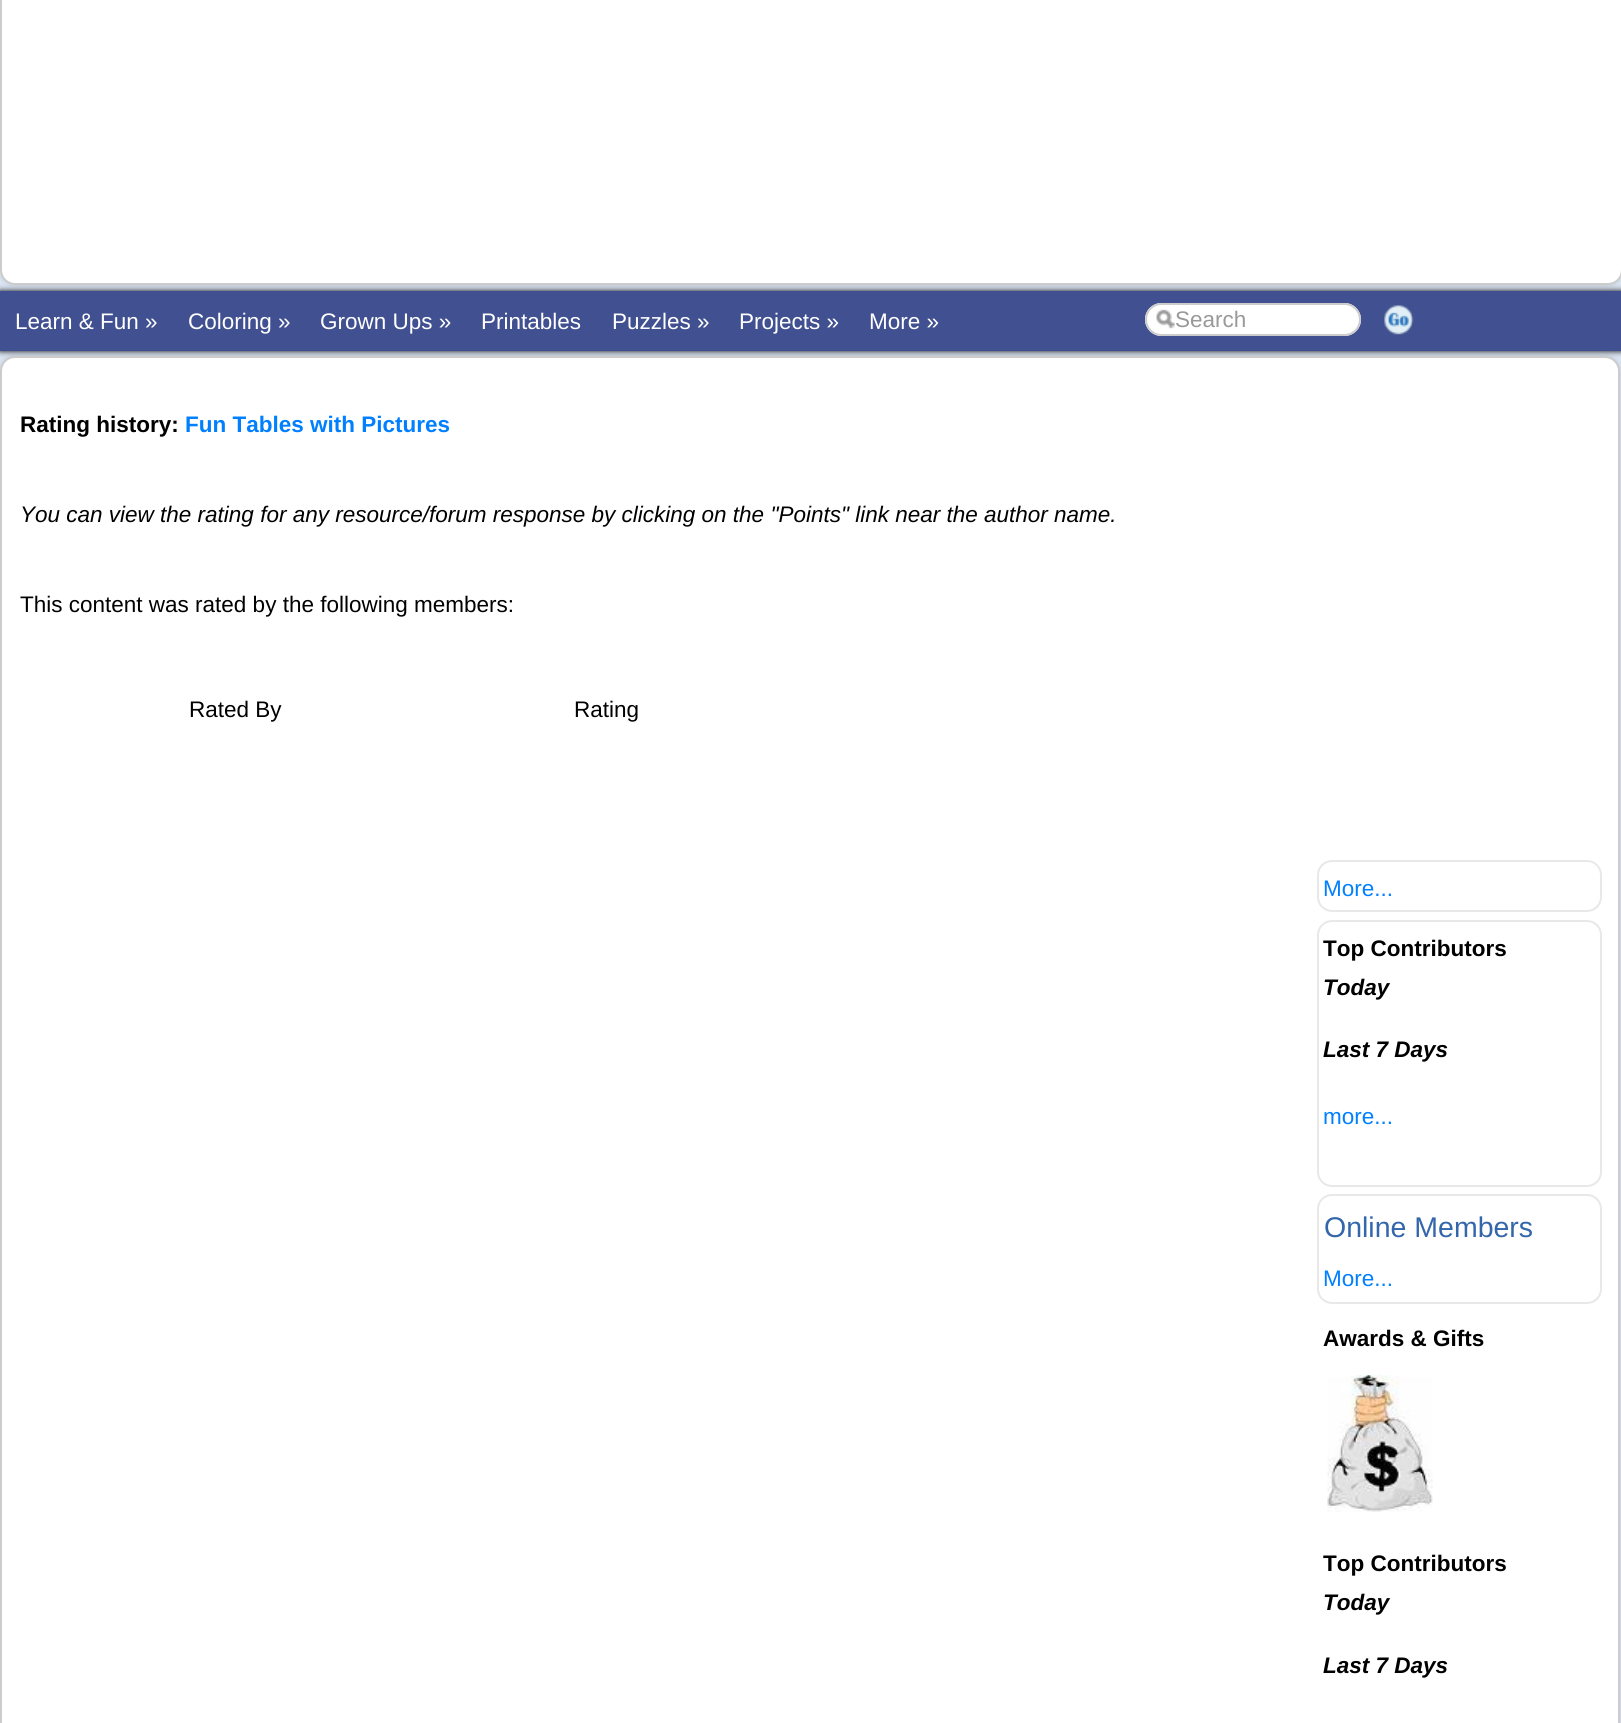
import math
import cairocffi as cairo

surface = cairo.ImageSurface(cairo.FORMAT_RGB24, 1621, 1723)
cr = cairo.Context(surface)
options = cairo.FontOptions()
options.set_hint_metrics(cairo.HINT_METRICS_OFF)
options.set_hint_style(cairo.HINT_STYLE_NONE)
cr.set_font_options(options)
cr.set_miter_limit(4)


def use_color(code):
    cr.set_source_rgb(*(v / 255 for v in bytes.fromhex(code[-6:])))


def round_rect(x, y, w, h, r):
    cr.new_sub_path()
    for i, (u, v) in enumerate([(x + w - r, y + h - r), (x + r, y + h - r), (x + r, y + r), (x + w - r, y + r)]):
        cr.arc(u, v, r, i * math.pi / 2, (i + 1) * math.pi / 2)
    cr.close_path()


def shadow(x, y, w, h, r, blur, alpha):
    cr.push_group_with_content(cairo.CONTENT_ALPHA)
    cr.set_operator(cairo.OPERATOR_SOURCE)
    for i in range(15, -16, -2):
        e = blur * i / 6
        if min(w, h) + 2 * e > 0:
            cr.set_source_rgba(0, 0, 0, alpha * math.erfc((i - 1) / 8.5) / 2)
            round_rect(x - e, y - e, w + 2 * e, h + 2 * e, max(0, min(r + e + blur * .6, min(w, h) / 2 + e)))
            cr.fill()
    cr.mask(cr.pop_group())


def picture(path, x, y, w, h):
    cr.save()
    cr.set_source_surface(cairo.ImageSurface.create_from_png(path), x, y)
    cr.rectangle(x, y, w, h)
    cr.fill()
    cr.restore()


use_color("#dce6f4")
cr.paint()
use_color("#000000")
shadow(0, 291, 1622, 60, 0, 3, 1)
use_color("#405090")
cr.rectangle(0, 291, 1621, 60)
cr.fill()
use_color("#323232")
shadow(0, -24, 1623, 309, 15, 3, 0.18)
use_color("#ffffff")
round_rect(1, -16, 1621, 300, 14)
cr.fill_preserve()
use_color("#cccccc")
cr.stroke()
cr.select_font_face("Liberation Sans")
cr.set_font_size(22.5)
use_color("#ffffff")
cr.move_to(15, 329)
cr.show_text("Learn & Fun »")
cr.move_to(188, 329)
cr.show_text("Coloring »")
cr.move_to(320, 329)
cr.show_text("Grown Ups »")
cr.move_to(481, 329)
cr.show_text("Printables")
cr.move_to(612, 329)
cr.show_text("Puzzles »")
cr.move_to(739, 329)
cr.show_text("Projects »")
cr.move_to(869, 329)
cr.show_text("More »")
round_rect(1145, 303, 216, 33, 16.5)
cr.fill()
picture("img1.png", 1156, 309, 19, 20)
round_rect(1146, 304, 214, 31, 15.5)
use_color("#cccccc")
cr.stroke()
use_color("#999999")
cr.move_to(1175, 327)
cr.show_text("Search")
picture("img2.png", 1384, 305, 30, 30)
use_color("#323232")
shadow(0, 356, 1620, 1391, 15, 3, 0.18)
use_color("#ffffff")
round_rect(1, 357, 1618, 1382, 14)
cr.fill_preserve()
use_color("#cccccc")
cr.stroke()
cr.select_font_face("Liberation Sans", cairo.FONT_SLANT_NORMAL, cairo.FONT_WEIGHT_BOLD)
use_color("#000000")
cr.move_to(20, 432)
cr.show_text("Rating history:")
use_color("#0080ff")
cr.move_to(185, 432)
cr.show_text("Fun Tables with Pictures")
cr.select_font_face("Liberation Sans", cairo.FONT_SLANT_ITALIC)
use_color("#000000")
cr.move_to(20, 522)
cr.show_text("You can view the rating for any resource/forum response by clicking on the \"Points\" link near the author name.")
cr.select_font_face("Liberation Sans")
cr.move_to(20, 612)
cr.show_text("This content was rated by the following members:")
cr.move_to(189, 717)
cr.show_text("Rated By")
cr.move_to(574, 717)
cr.show_text("Rating")
round_rect(1318, 861, 283, 50, 14)
use_color("#e8e8e8")
cr.stroke()
use_color("#0080ff")
cr.move_to(1323, 896)
cr.show_text("More...")
round_rect(1318, 921, 283, 265, 14)
use_color("#e8e8e8")
cr.stroke()
cr.select_font_face("Liberation Sans", cairo.FONT_SLANT_NORMAL, cairo.FONT_WEIGHT_BOLD)
use_color("#000000")
cr.move_to(1323, 956)
cr.show_text("Top Contributors")
cr.select_font_face("Liberation Sans", cairo.FONT_SLANT_ITALIC, cairo.FONT_WEIGHT_BOLD)
cr.move_to(1323, 995)
cr.show_text("Today")
cr.move_to(1323, 1057)
cr.show_text("Last 7 Days")
cr.select_font_face("Liberation Sans")
use_color("#0080ff")
cr.move_to(1323, 1124)
cr.show_text("more...")
round_rect(1318, 1195, 283, 108, 14)
use_color("#e8e8e8")
cr.stroke()
cr.set_font_size(28.5)
use_color("#3366aa")
cr.move_to(1324, 1237)
cr.show_text("Online Members")
cr.set_font_size(22.5)
use_color("#0080ff")
cr.move_to(1323, 1286)
cr.show_text("More...")
cr.select_font_face("Liberation Sans", cairo.FONT_SLANT_NORMAL, cairo.FONT_WEIGHT_BOLD)
use_color("#000000")
cr.move_to(1323, 1346)
cr.show_text("Awards & Gifts")
picture("img3.png", 1327, 1375, 106, 137)
cr.move_to(1323, 1571)
cr.show_text("Top Contributors")
cr.select_font_face("Liberation Sans", cairo.FONT_SLANT_ITALIC, cairo.FONT_WEIGHT_BOLD)
cr.move_to(1323, 1610)
cr.show_text("Today")
cr.move_to(1323, 1673)
cr.show_text("Last 7 Days")
surface.write_to_png("result.png")
